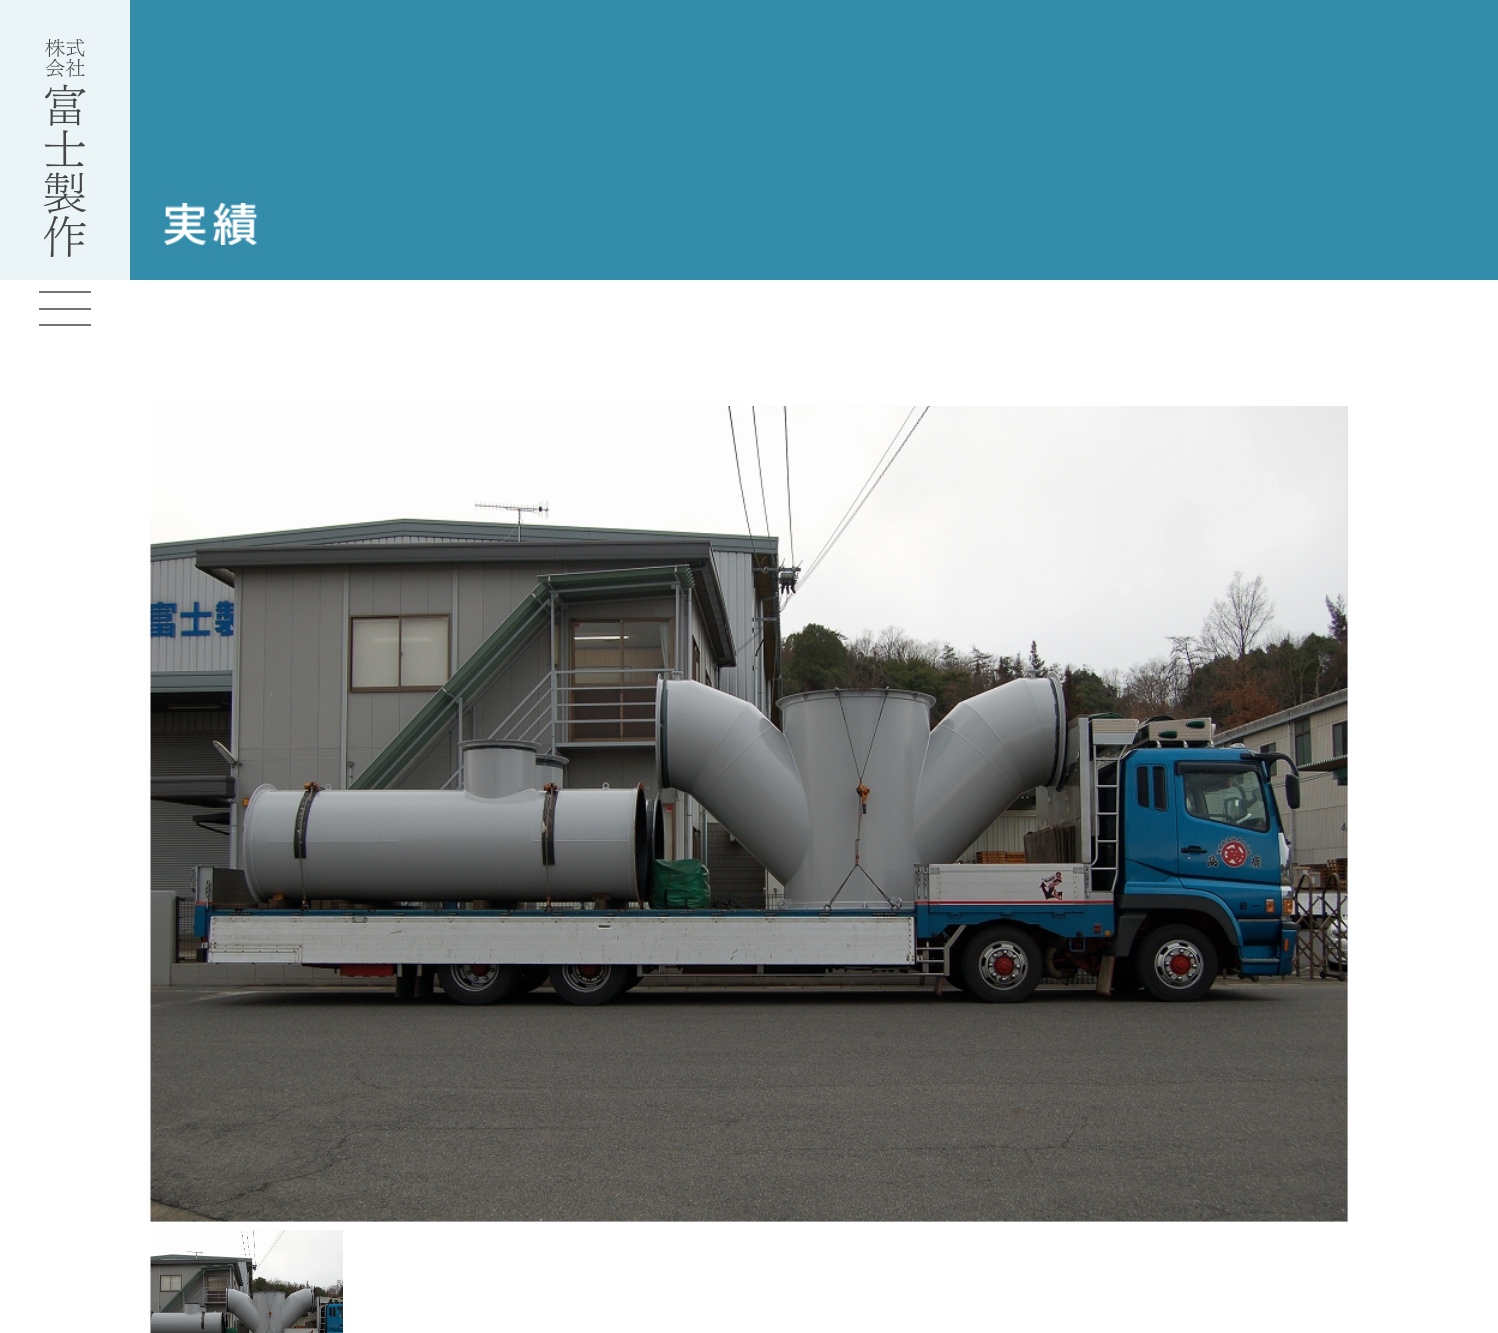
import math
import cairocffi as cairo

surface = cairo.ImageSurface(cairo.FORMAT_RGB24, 1498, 1333)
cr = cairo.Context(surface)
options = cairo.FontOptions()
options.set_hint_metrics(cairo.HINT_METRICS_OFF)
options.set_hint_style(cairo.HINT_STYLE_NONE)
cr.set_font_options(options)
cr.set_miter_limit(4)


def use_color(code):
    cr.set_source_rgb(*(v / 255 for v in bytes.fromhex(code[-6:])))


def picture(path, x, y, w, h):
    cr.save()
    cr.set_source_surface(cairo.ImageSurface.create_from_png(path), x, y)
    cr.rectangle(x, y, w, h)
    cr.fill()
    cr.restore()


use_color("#ffffff")
cr.paint()
use_color("#328caa")
cr.rectangle(130, 0, 1368, 280)
cr.fill()
use_color("#ebf4f7")
cr.rectangle(0, 0, 130, 280)
cr.fill()
picture("img1.png", 164, 203, 94, 42)
use_color("#dcdddd")
cr.rectangle(151, 406, 1197, 816)
cr.fill()
picture("img2.png", 150, 406, 1198, 816)
picture("img3.png", 150, 1230, 193, 103)
picture("img4.png", 44, 39, 42, 218)
use_color("#757575")
cr.rectangle(39, 291, 52, 2)
cr.fill()
cr.rectangle(39, 308, 52, 2)
cr.fill()
cr.rectangle(39, 324, 52, 2)
cr.fill()
surface.write_to_png("result.png")
